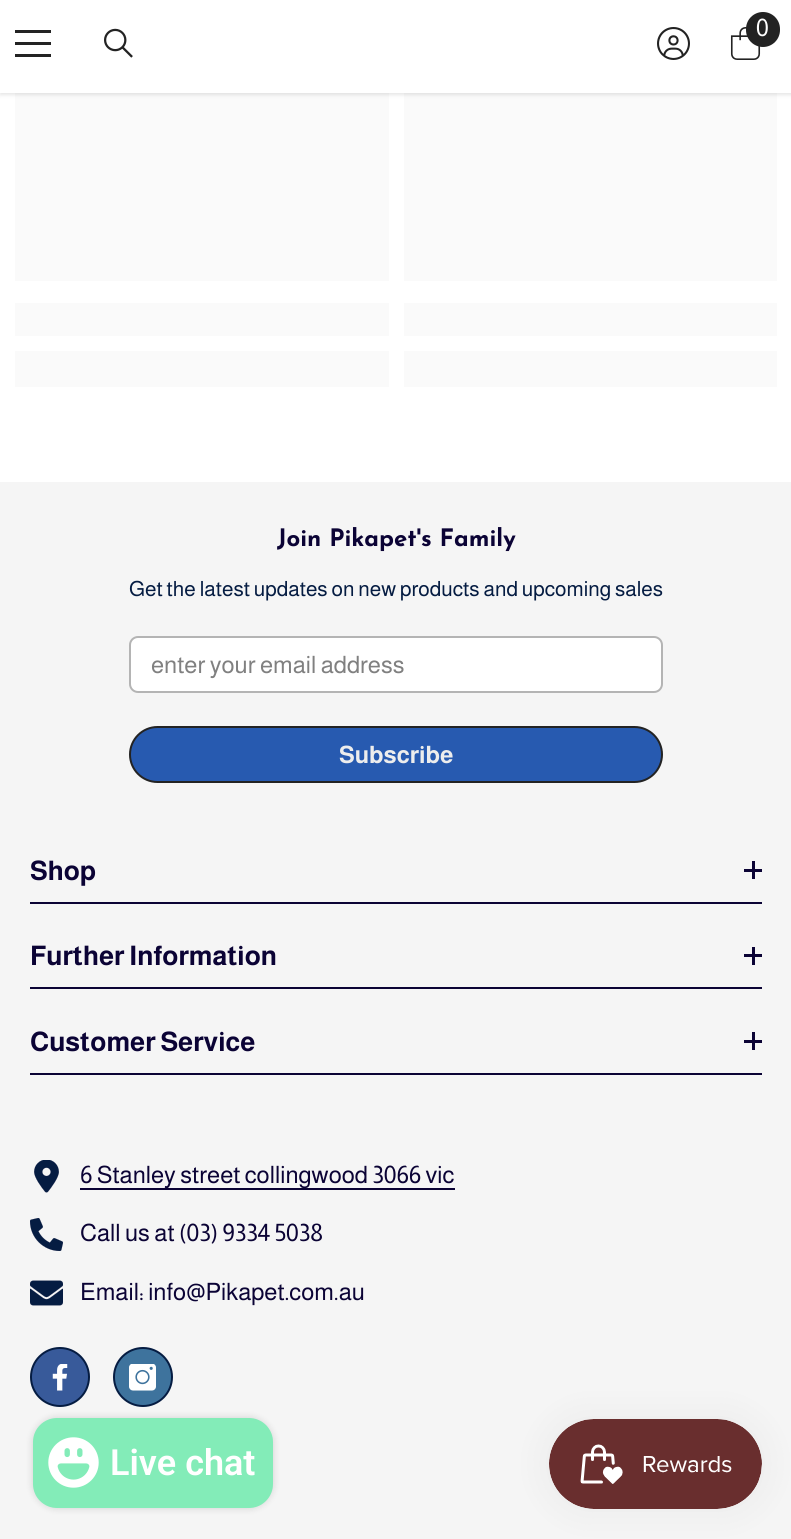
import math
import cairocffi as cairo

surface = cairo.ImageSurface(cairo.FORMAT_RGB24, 791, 1539)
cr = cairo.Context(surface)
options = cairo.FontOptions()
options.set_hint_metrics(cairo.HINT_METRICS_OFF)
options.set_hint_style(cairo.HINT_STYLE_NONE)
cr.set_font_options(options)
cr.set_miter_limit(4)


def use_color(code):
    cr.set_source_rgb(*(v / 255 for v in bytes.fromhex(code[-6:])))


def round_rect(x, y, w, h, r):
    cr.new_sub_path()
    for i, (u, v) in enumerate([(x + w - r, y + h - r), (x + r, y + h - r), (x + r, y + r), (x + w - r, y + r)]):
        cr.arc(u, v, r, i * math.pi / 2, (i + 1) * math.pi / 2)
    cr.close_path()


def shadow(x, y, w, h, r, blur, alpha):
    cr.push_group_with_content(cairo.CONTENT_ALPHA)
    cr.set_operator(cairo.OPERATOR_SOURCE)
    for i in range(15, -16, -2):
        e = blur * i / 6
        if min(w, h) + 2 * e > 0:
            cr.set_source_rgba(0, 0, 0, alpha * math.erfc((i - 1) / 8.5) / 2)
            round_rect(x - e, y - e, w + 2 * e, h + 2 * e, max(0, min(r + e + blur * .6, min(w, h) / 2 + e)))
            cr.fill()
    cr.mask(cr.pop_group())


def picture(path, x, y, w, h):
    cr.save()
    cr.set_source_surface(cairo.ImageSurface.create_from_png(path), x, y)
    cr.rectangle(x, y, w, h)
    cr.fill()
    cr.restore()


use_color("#ffffff")
cr.paint()
gradient = cairo.LinearGradient(-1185, 32, 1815, 32)
gradient.add_color_stop_rgba(0.04, 0.98, 0.98, 0.98, 1)
gradient.add_color_stop_rgba(0.25, 0.945, 0.949, 0.953, 1)
gradient.add_color_stop_rgba(0.36, 0.98, 0.98, 0.98, 1)
cr.set_source(gradient)
cr.rectangle(15, 93, 374, 188)
cr.fill()
gradient = cairo.LinearGradient(-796, 32, 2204, 32)
gradient.add_color_stop_rgba(0.04, 0.98, 0.98, 0.98, 1)
gradient.add_color_stop_rgba(0.25, 0.945, 0.949, 0.953, 1)
gradient.add_color_stop_rgba(0.36, 0.98, 0.98, 0.98, 1)
cr.set_source(gradient)
cr.rectangle(404, 93, 373, 188)
cr.fill()
use_color("#000000")
shadow(0, 2, 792, 93, 0, 2, 0.1)
use_color("#ffffff")
cr.rectangle(0, 0, 791, 93)
cr.fill()
use_color("#232323")
cr.rectangle(15, 42, 36, 3)
cr.fill()
cr.rectangle(15, 30, 36, 3)
cr.fill()
cr.rectangle(15, 54, 36, 3)
cr.fill()
picture("img1.png", 104, 28, 29, 30)
picture("img2.png", 657, 27, 33, 33)
picture("img3.png", 730, 27, 31, 33)
round_rect(746, 12, 34, 35, 17)
cr.fill()
cr.select_font_face("Almarai")
cr.set_font_size(24)
use_color("#ffffff")
cr.move_to(756, 36)
cr.show_text("0")
gradient = cairo.LinearGradient(-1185, 320, 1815, 319)
gradient.add_color_stop_rgba(0.04, 0.98, 0.98, 0.98, 1)
gradient.add_color_stop_rgba(0.25, 0.945, 0.949, 0.953, 1)
gradient.add_color_stop_rgba(0.36, 0.98, 0.98, 0.98, 1)
cr.set_source(gradient)
cr.rectangle(15, 303, 374, 33)
cr.fill()
gradient = cairo.LinearGradient(-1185, 369, 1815, 369)
gradient.add_color_stop_rgba(0.04, 0.98, 0.98, 0.98, 1)
gradient.add_color_stop_rgba(0.25, 0.945, 0.949, 0.953, 1)
gradient.add_color_stop_rgba(0.36, 0.98, 0.98, 0.98, 1)
cr.set_source(gradient)
cr.rectangle(15, 351, 374, 36)
cr.fill()
gradient = cairo.LinearGradient(-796, 320, 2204, 319)
gradient.add_color_stop_rgba(0.04, 0.98, 0.98, 0.98, 1)
gradient.add_color_stop_rgba(0.25, 0.945, 0.949, 0.953, 1)
gradient.add_color_stop_rgba(0.36, 0.98, 0.98, 0.98, 1)
cr.set_source(gradient)
cr.rectangle(404, 303, 373, 33)
cr.fill()
gradient = cairo.LinearGradient(-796, 369, 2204, 369)
gradient.add_color_stop_rgba(0.04, 0.98, 0.98, 0.98, 1)
gradient.add_color_stop_rgba(0.25, 0.945, 0.949, 0.953, 1)
gradient.add_color_stop_rgba(0.36, 0.98, 0.98, 0.98, 1)
cr.set_source(gradient)
cr.rectangle(404, 351, 373, 36)
cr.fill()
use_color("#f5f5f5")
cr.rectangle(0, 482, 791, 1057)
cr.fill()
cr.select_font_face("Josefin Sans", cairo.FONT_SLANT_NORMAL, cairo.FONT_WEIGHT_BOLD)
use_color("#0b0335")
cr.move_to(277, 546)
cr.show_text("Join Pikapet's Family")
cr.select_font_face("Almarai")
cr.set_font_size(21)
use_color("#051c42")
cr.move_to(129, 596)
cr.show_text("Get the latest updates on new products and upcoming sales")
use_color("#ffffff")
round_rect(130, 637, 532, 55, 8)
cr.fill_preserve()
use_color("#b4b4b4")
cr.stroke()
cr.set_font_size(24)
use_color("#808080")
cr.move_to(151, 673)
cr.show_text("enter your email address")
use_color("#275ab0")
round_rect(130, 727, 532, 55, 27.5)
cr.fill_preserve()
use_color("#232323")
cr.stroke()
cr.select_font_face("Almarai", cairo.FONT_SLANT_NORMAL, cairo.FONT_WEIGHT_BOLD)
use_color("#ededed")
cr.move_to(339, 763)
cr.show_text("Subscribe")
use_color("#0b0335")
cr.rectangle(30, 902, 732, 2)
cr.fill()
cr.set_font_size(27)
cr.move_to(30, 880)
cr.show_text("Shop")
cr.rectangle(752, 861, 3, 18)
cr.fill()
cr.rectangle(744, 869, 18, 3)
cr.fill()
cr.rectangle(30, 987, 732, 2)
cr.fill()
cr.move_to(30, 965)
cr.show_text("Further Information")
cr.rectangle(752, 947, 3, 18)
cr.fill()
cr.rectangle(744, 954, 18, 3)
cr.fill()
cr.rectangle(30, 1073, 732, 2)
cr.fill()
cr.move_to(30, 1051)
cr.show_text("Customer Service")
cr.rectangle(752, 1032, 3, 18)
cr.fill()
cr.rectangle(744, 1040, 18, 3)
cr.fill()
picture("img4.png", 34, 1160, 25, 33)
cr.rectangle(80, 1188, 375, 2)
cr.fill()
cr.select_font_face("Almarai")
cr.set_font_size(24)
cr.move_to(80, 1183)
cr.show_text("6 Stanley street collingwood 3066 vic")
picture("img5.png", 30, 1218, 33, 33)
cr.move_to(80, 1241)
cr.show_text("Call us at (03) 9334 5038")
picture("img6.png", 30, 1280, 33, 26)
cr.move_to(80, 1300)
cr.show_text("Email: info@Pikapet.com.au")
use_color("#385a9a")
cr.new_path()
cr.arc(60, 1377, 29, 0, 2 * math.pi)
cr.fill_preserve()
use_color("#051c42")
cr.stroke()
picture("img7.png", 52, 1364, 16, 27)
use_color("#3e739d")
cr.arc(143, 1377, 29, 0, 2 * math.pi)
cr.fill_preserve()
use_color("#051c42")
cr.stroke()
picture("img8.png", 129, 1364, 27, 27)
use_color("#000000")
shadow(33, 1418, 240, 90, 24, 4, 0.15)
use_color("#83ecb8")
round_rect(33, 1418, 240, 90, 24)
cr.fill()
picture("img9.png", 48, 1437, 51, 51)
cr.select_font_face("Roboto SemiBold")
cr.set_font_size(36)
use_color("#ffffff")
cr.move_to(110, 1475)
cr.show_text("Live chat")
use_color("#000000")
shadow(549, 1419, 213, 90, 45, 19, 0.05)
picture("img10.png", 549, 1419, 213, 90)
surface.write_to_png("result.png")
